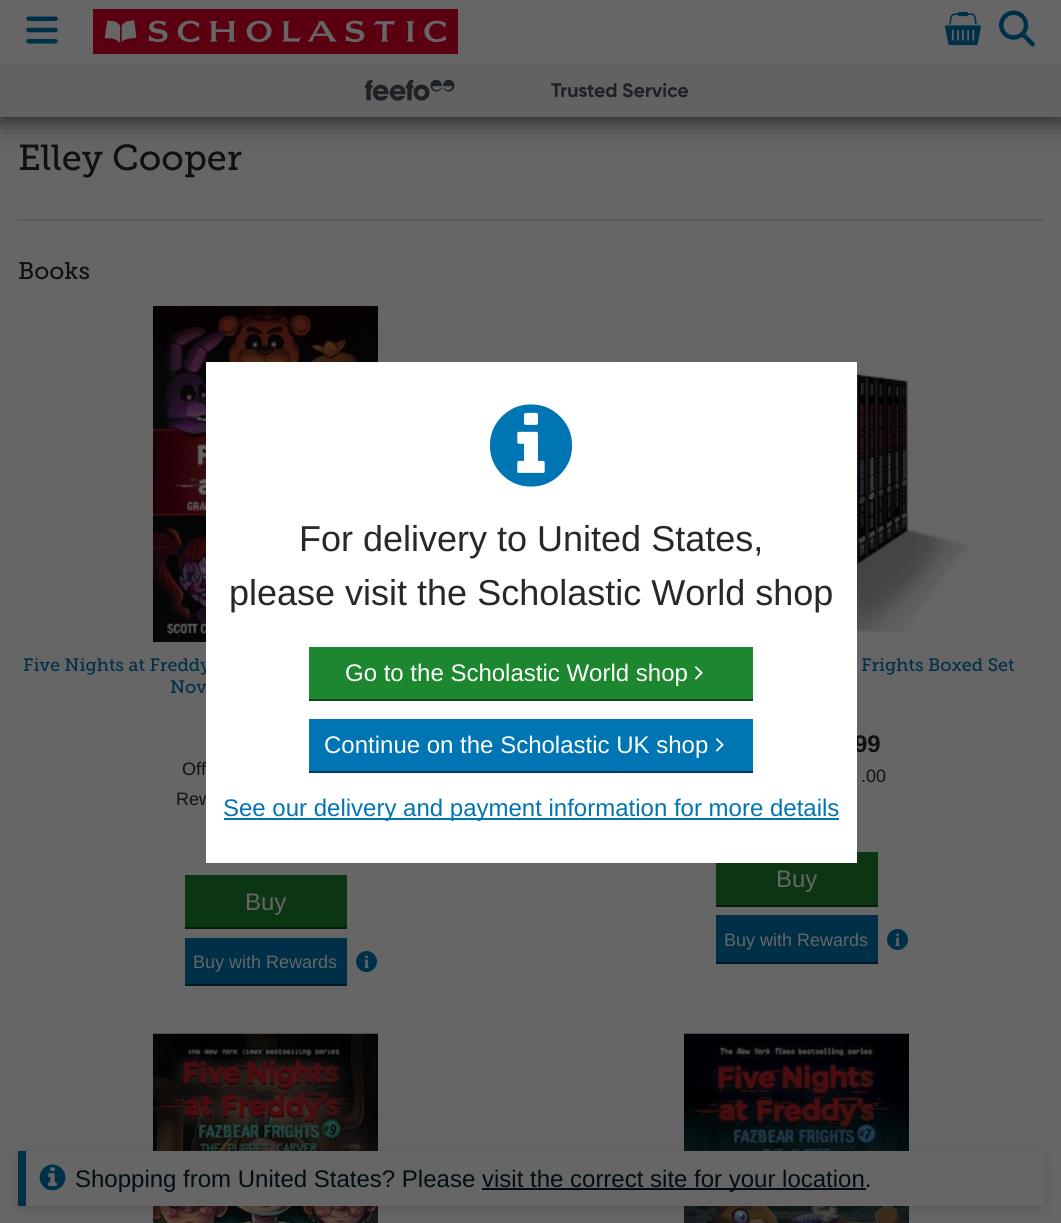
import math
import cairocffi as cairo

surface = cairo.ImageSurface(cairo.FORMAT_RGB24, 1061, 1223)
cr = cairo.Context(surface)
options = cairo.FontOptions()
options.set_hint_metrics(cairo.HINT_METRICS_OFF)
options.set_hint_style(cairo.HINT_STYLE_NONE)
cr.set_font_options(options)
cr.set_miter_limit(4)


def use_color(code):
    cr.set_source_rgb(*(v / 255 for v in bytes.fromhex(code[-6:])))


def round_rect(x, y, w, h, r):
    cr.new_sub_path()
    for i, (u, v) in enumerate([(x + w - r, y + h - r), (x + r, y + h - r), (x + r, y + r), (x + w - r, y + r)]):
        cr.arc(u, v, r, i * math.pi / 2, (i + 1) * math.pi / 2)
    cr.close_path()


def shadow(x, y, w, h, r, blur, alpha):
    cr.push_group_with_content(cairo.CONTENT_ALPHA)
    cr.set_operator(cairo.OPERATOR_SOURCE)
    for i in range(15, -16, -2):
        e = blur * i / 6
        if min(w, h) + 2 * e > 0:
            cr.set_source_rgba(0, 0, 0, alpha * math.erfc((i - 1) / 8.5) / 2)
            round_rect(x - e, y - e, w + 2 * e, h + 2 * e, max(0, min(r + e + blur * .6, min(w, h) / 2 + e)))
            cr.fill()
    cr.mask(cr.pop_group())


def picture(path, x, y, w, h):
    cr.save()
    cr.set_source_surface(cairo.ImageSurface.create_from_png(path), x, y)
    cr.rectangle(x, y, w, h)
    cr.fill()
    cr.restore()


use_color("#666666")
cr.paint()
cr.select_font_face("Museo Slab")
cr.set_font_size(36)
use_color("#101010")
cr.move_to(18, 170)
cr.show_text("Elley Cooper")
use_color("#5c5c5c")
cr.rectangle(18, 219, 1026, 2)
cr.fill()
cr.set_font_size(24)
use_color("#101010")
cr.move_to(18, 279)
cr.show_text("Books")
picture("img1.png", 153, 306, 225, 336)
cr.set_font_size(18)
use_color("#002f48")
cr.move_to(23, 671)
cr.show_text("Five Nights at Freddy")
cr.move_to(170, 693)
cr.show_text("Nov")
cr.select_font_face("Liberation Sans")
use_color("#101010")
cr.move_to(182, 775)
cr.show_text("Off")
cr.move_to(176, 805)
cr.show_text("Rew")
use_color("#0c3613")
cr.rectangle(185, 875, 162, 52)
cr.fill()
use_color("#061b0a")
cr.rectangle(185, 927, 162, 2)
cr.fill()
cr.set_font_size(24)
use_color("#666666")
cr.move_to(245, 910)
cr.show_text("Buy")
use_color("#002f48")
cr.rectangle(185, 938, 162, 46)
cr.fill()
use_color("#001824")
cr.rectangle(185, 984, 162, 2)
cr.fill()
cr.set_font_size(18)
use_color("#666666")
cr.move_to(193, 968)
cr.show_text("Buy with Rewards")
use_color("#002f48")
cr.new_path()
cr.arc(366.5, 961.5, 10.5, 0, 2 * math.pi)
cr.fill()
cr.select_font_face("Liberation Serif", cairo.FONT_SLANT_NORMAL, cairo.FONT_WEIGHT_BOLD)
use_color("#666666")
cr.move_to(364, 968)
cr.show_text("i")
picture("img2.png", 618, 345, 351, 289)
cr.select_font_face("Museo Slab")
use_color("#002f48")
cr.move_to(861, 671)
cr.show_text("Frights Boxed Set")
cr.select_font_face("Liberation Sans", cairo.FONT_SLANT_NORMAL, cairo.FONT_WEIGHT_BOLD)
cr.set_font_size(24)
use_color("#101010")
cr.move_to(854, 752)
cr.show_text("99")
cr.select_font_face("Liberation Sans")
cr.set_font_size(18)
cr.move_to(861, 782)
cr.show_text(".00")
use_color("#0c3613")
cr.rectangle(716, 852, 162, 53)
cr.fill()
use_color("#061b0a")
cr.rectangle(716, 905, 162, 2)
cr.fill()
cr.set_font_size(24)
use_color("#666666")
cr.move_to(776, 887)
cr.show_text("Buy")
use_color("#002f48")
cr.rectangle(716, 915, 162, 47)
cr.fill()
use_color("#001824")
cr.rectangle(716, 962, 162, 2)
cr.fill()
cr.set_font_size(18)
use_color("#666666")
cr.move_to(724, 946)
cr.show_text("Buy with Rewards")
use_color("#002f48")
cr.new_path()
cr.arc(897.5, 939.5, 10.5, 0, 2 * math.pi)
cr.fill()
cr.select_font_face("Liberation Serif", cairo.FONT_SLANT_NORMAL, cairo.FONT_WEIGHT_BOLD)
use_color("#666666")
cr.move_to(895, 946)
cr.show_text("i")
picture("img3.png", 153, 1033, 225, 190)
picture("img4.png", 684, 1033, 225, 190)
picture("img5.png", 26, 16, 32, 28)
picture("img6.png", 93, 9, 365, 45)
picture("img7.png", 945, 11, 36, 35)
picture("img8.png", 999, 10, 36, 37)
use_color("#000000")
shadow(0, 102, 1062, 15, 7.5, 15, 0.8)
use_color("#626262")
cr.rectangle(0, 63, 1061, 54)
cr.fill()
picture("img9.png", 365, 79, 324, 22)
use_color("#000000")
shadow(21, 1157, 1020, 49, 0, 7.5, 0.2)
use_color("#666666")
cr.rectangle(26, 1151, 1018, 55)
cr.fill()
use_color("#002f48")
cr.rectangle(18, 1151, 8, 55)
cr.fill()
picture("img10.png", 39, 1164, 27, 27)
cr.select_font_face("Liberation Sans")
cr.set_font_size(24)
use_color("#000e14")
cr.move_to(75, 1187)
cr.show_text("Shopping from United States? Please")
cr.rectangle(482, 1188, 384, 2)
cr.fill()
cr.move_to(482, 1187)
cr.show_text("visit the correct site for your location.")
use_color("#ffffff")
cr.rectangle(206, 362, 651, 501)
cr.fill()
picture("img11.png", 489, 404, 84, 83)
cr.set_font_size(36)
use_color("#282828")
cr.move_to(299, 551)
cr.show_text("For delivery to United States,")
cr.move_to(229, 605)
cr.show_text("please visit the Scholastic World shop")
use_color("#1d8730")
cr.rectangle(309, 647, 444, 52)
cr.fill()
use_color("#0f4418")
cr.rectangle(309, 699, 444, 2)
cr.fill()
cr.set_font_size(24)
use_color("#ffffff")
cr.move_to(345, 681)
cr.show_text("Go to the Scholastic World shop")
picture("img12.png", 694, 666, 9, 14)
use_color("#0075b3")
cr.rectangle(309, 719, 444, 52)
cr.fill()
use_color("#003b5a")
cr.rectangle(309, 771, 444, 2)
cr.fill()
use_color("#ffffff")
cr.move_to(324, 753)
cr.show_text("Continue on the Scholastic UK shop")
picture("img13.png", 715, 738, 9, 14)
use_color("#0075b3")
cr.rectangle(224, 818, 615, 2)
cr.fill()
cr.move_to(223, 816)
cr.show_text("See our delivery and payment information for more details")
surface.write_to_png("result.png")
